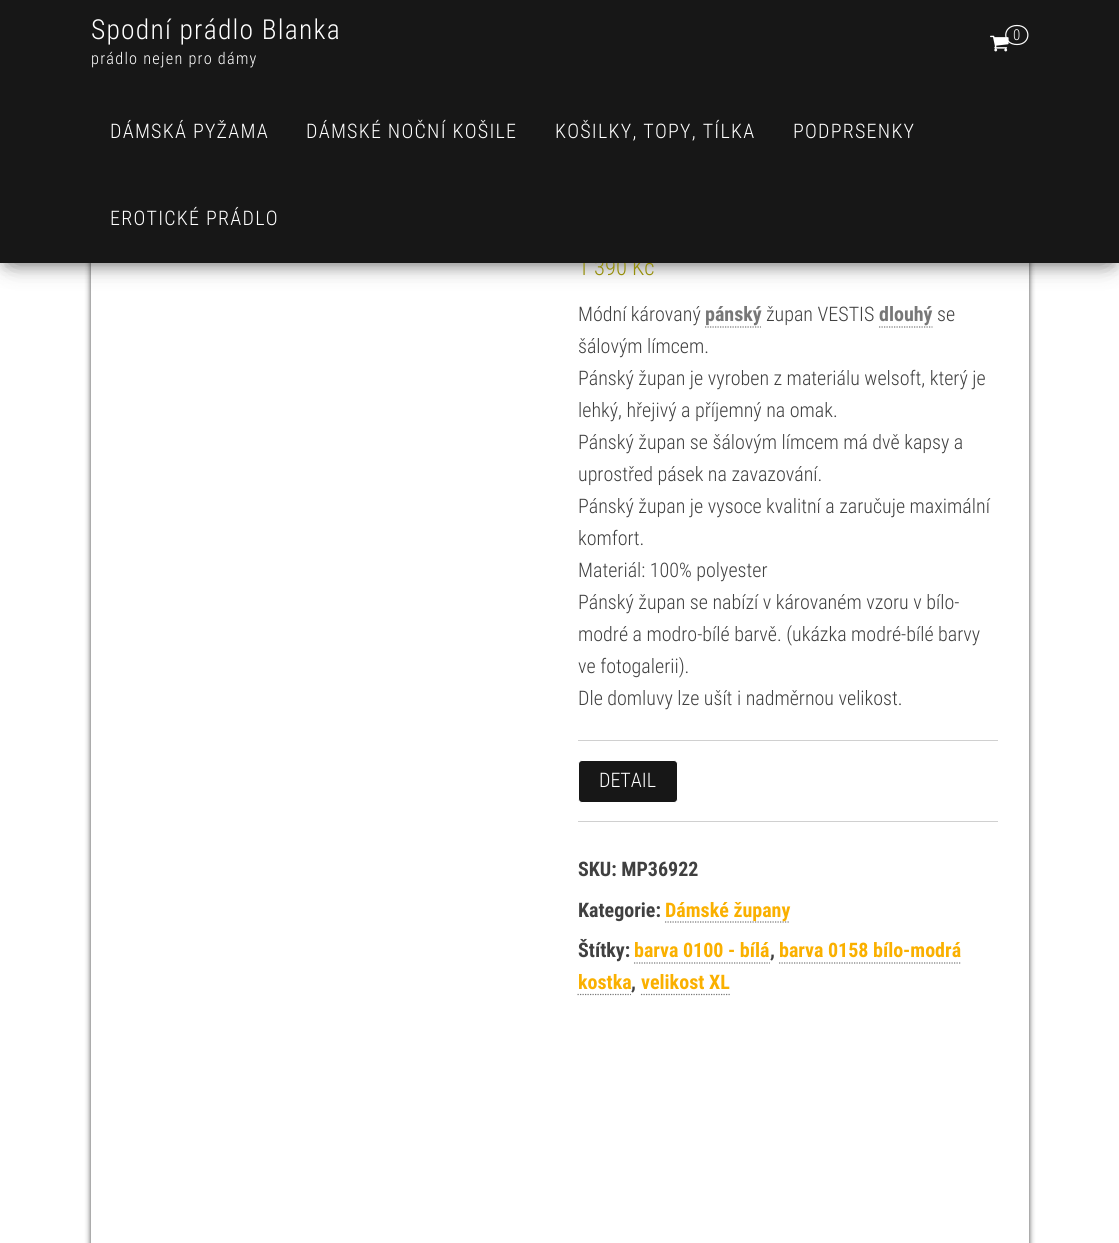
import math
import cairocffi as cairo

surface = cairo.ImageSurface(cairo.FORMAT_RGB24, 1119, 1243)
cr = cairo.Context(surface)
options = cairo.FontOptions()
options.set_hint_metrics(cairo.HINT_METRICS_OFF)
options.set_hint_style(cairo.HINT_STYLE_NONE)
cr.set_font_options(options)
cr.set_miter_limit(4)


def use_color(code):
    cr.set_source_rgb(*(v / 255 for v in bytes.fromhex(code[-6:])))


def spaced_text(x, y, s, letter, word):
    cr.move_to(x, y)
    for ch in s:
        cr.show_text(ch)
        cr.rel_move_to(letter + word * (ch == ' '), 0)


def round_rect(x, y, w, h, r):
    cr.new_sub_path()
    for i, (u, v) in enumerate([(x + w - r, y + h - r), (x + r, y + h - r), (x + r, y + r), (x + w - r, y + r)]):
        cr.arc(u, v, r, i * math.pi / 2, (i + 1) * math.pi / 2)
    cr.close_path()


def shadow(x, y, w, h, r, blur, alpha):
    cr.push_group_with_content(cairo.CONTENT_ALPHA)
    cr.set_operator(cairo.OPERATOR_SOURCE)
    for i in range(15, -16, -2):
        e = blur * i / 6
        if min(w, h) + 2 * e > 0:
            cr.set_source_rgba(0, 0, 0, alpha * math.erfc((i - 1) / 8.5) / 2)
            round_rect(x - e, y - e, w + 2 * e, h + 2 * e, max(0, min(r + e + blur * .6, min(w, h) / 2 + e)))
            cr.fill()
    cr.mask(cr.pop_group())


def picture(path, x, y, w, h):
    cr.save()
    cr.set_source_surface(cairo.ImageSurface.create_from_png(path), x, y)
    cr.rectangle(x, y, w, h)
    cr.fill()
    cr.restore()


use_color("#ffffff")
cr.paint()
use_color("#000000")
shadow(91, 88, 938, 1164, 0, 3, 0.75)
use_color("#ffffff")
cr.rectangle(91, 263, 938, 980)
cr.fill()
use_color("#000000")
shadow(6, 16, 1108, 250, 0, 6, 0.2)
shadow(0, 4, 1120, 262, 0, 12.5, 0.12)
shadow(15, 28, 1090, 232, 0, 12.5, 0.42)
cr.select_font_face("Roboto Condensed Light")
cr.set_font_size(22.5)
use_color("#958e09")
cr.move_to(578, 275)
cr.show_text("1 390 Kč")
use_color("#171717")
cr.rectangle(0, 0, 1119, 263)
cr.fill()
cr.set_font_size(27.5)
use_color("#ffffff")
spaced_text(91, 39, "Spodní prádlo Blanka", 1.25, 0)
cr.set_font_size(16.25)
spaced_text(91, 64, "prádlo nejen pro dámy", 1.25, 0)
picture("img1.png", 990, 35, 19, 17)
cr.new_path()
cr.move_to(1017, 25.5)
cr.curve_to(1031.5, 25.5, 1031.5, 44.5, 1017, 44.5)
cr.curve_to(1002, 44.5, 1002, 25.5, 1017, 25.5)
cr.close_path()
cr.set_line_width(1.2)
cr.stroke()
cr.set_font_size(15)
spaced_text(1013, 40, "0", 1.25, 0)
cr.set_font_size(20)
spaced_text(110, 138, "DÁMSKÁ PYŽAMA", 1.25, 0)
spaced_text(306, 138, "DÁMSKÉ NOČNÍ KOŠILE", 1.25, 0)
spaced_text(555, 138, "KOŠILKY, TOPY, TÍLKA", 1.25, 0)
spaced_text(793, 138, "PODPRSENKY", 1.25, 0)
spaced_text(110, 225, "EROTICKÉ PRÁDLO", 1.25, 0)
use_color("#404040")
cr.move_to(578, 321)
cr.show_text("Módní károvaný")
cr.select_font_face("Roboto Condensed", cairo.FONT_SLANT_NORMAL, cairo.FONT_WEIGHT_BOLD)
use_color("#777777")
cr.move_to(705, 321)
cr.show_text("pánský")
cr.new_path()
cr.move_to(705, 327)
cr.line_to(761, 327)
cr.set_dash([1.25, 1.25])
cr.stroke()
cr.select_font_face("Roboto Condensed Light")
use_color("#404040")
cr.move_to(766, 321)
cr.show_text("župan VESTIS")
cr.select_font_face("Roboto Condensed", cairo.FONT_SLANT_NORMAL, cairo.FONT_WEIGHT_BOLD)
use_color("#777777")
cr.move_to(879, 321)
cr.show_text("dlouhý")
cr.new_path()
cr.move_to(879, 327)
cr.line_to(932.5, 327)
cr.stroke()
cr.select_font_face("Roboto Condensed Light")
use_color("#404040")
cr.move_to(937, 321)
cr.show_text("se")
cr.move_to(578, 353)
cr.show_text("šálovým límcem.")
cr.move_to(578, 385)
cr.show_text("Pánský župan je vyroben z materiálu welsoft, který je")
cr.move_to(578, 417)
cr.show_text("lehký, hřejivý a příjemný na omak.")
cr.move_to(578, 449)
cr.show_text("Pánský župan se šálovým límcem má dvě kapsy a")
cr.move_to(578, 481)
cr.show_text("uprostřed pásek na zavazování.")
cr.move_to(578, 513)
cr.show_text("Pánský župan je vysoce kvalitní a zaručuje maximální")
cr.move_to(578, 545)
cr.show_text("komfort.")
cr.move_to(578, 577)
cr.show_text("Materiál: 100% polyester")
cr.move_to(578, 609)
cr.show_text("Pánský župan se nabízí v károvaném vzoru v bílo-")
cr.move_to(578, 641)
cr.show_text("modré a modro-bílé barvě. (ukázka modré-bílé barvy")
cr.move_to(578, 673)
cr.show_text("ve fotogalerii).")
cr.move_to(578, 705)
cr.show_text("Dle domluvy lze ušít i nadměrnou velikost.")
use_color("#d0d0d0")
cr.rectangle(578, 740, 420, 1)
cr.fill()
cr.rectangle(578, 821, 420, 1)
cr.fill()
use_color("#171717")
round_rect(578.5, 760.5, 99, 42, 3.5)
cr.fill_preserve()
use_color("#ffffff")
cr.set_line_width(1)
cr.set_dash([])
cr.stroke()
cr.move_to(599, 787)
cr.show_text("DETAIL")
cr.select_font_face("Roboto Condensed", cairo.FONT_SLANT_NORMAL, cairo.FONT_WEIGHT_BOLD)
use_color("#404040")
cr.move_to(578, 876)
cr.show_text("SKU: MP36922")
cr.move_to(578, 917)
cr.show_text("Kategorie:")
cr.new_path()
cr.move_to(665, 922)
cr.line_to(790, 922)
use_color("#777777")
cr.set_line_width(1.2)
cr.set_dash([1.25, 1.25])
cr.stroke()
use_color("#fab000")
cr.move_to(665, 917)
cr.show_text("Dámské župany")
use_color("#404040")
cr.move_to(578, 957)
cr.show_text("Štítky:")
use_color("#fab000")
cr.move_to(634, 957)
cr.show_text("barva 0100 - bílá")
cr.new_path()
cr.move_to(634, 963)
cr.line_to(770, 963)
use_color("#777777")
cr.stroke()
use_color("#404040")
cr.move_to(770, 957)
cr.show_text(",")
use_color("#fab000")
cr.move_to(779, 957)
cr.show_text("barva 0158 bílo-modrá")
cr.new_path()
cr.move_to(779, 963)
cr.line_to(961, 963)
use_color("#777777")
cr.stroke()
use_color("#fab000")
cr.move_to(578, 989)
cr.show_text("kostka")
cr.new_path()
cr.move_to(577.5, 994.5)
cr.line_to(631, 994.5)
use_color("#777777")
cr.stroke()
use_color("#404040")
cr.move_to(631, 989)
cr.show_text(",")
use_color("#fab000")
cr.move_to(641, 989)
cr.show_text("velikost XL")
cr.new_path()
cr.move_to(641, 994.5)
cr.line_to(730, 994.5)
use_color("#777777")
cr.stroke()
surface.write_to_png("result.png")
